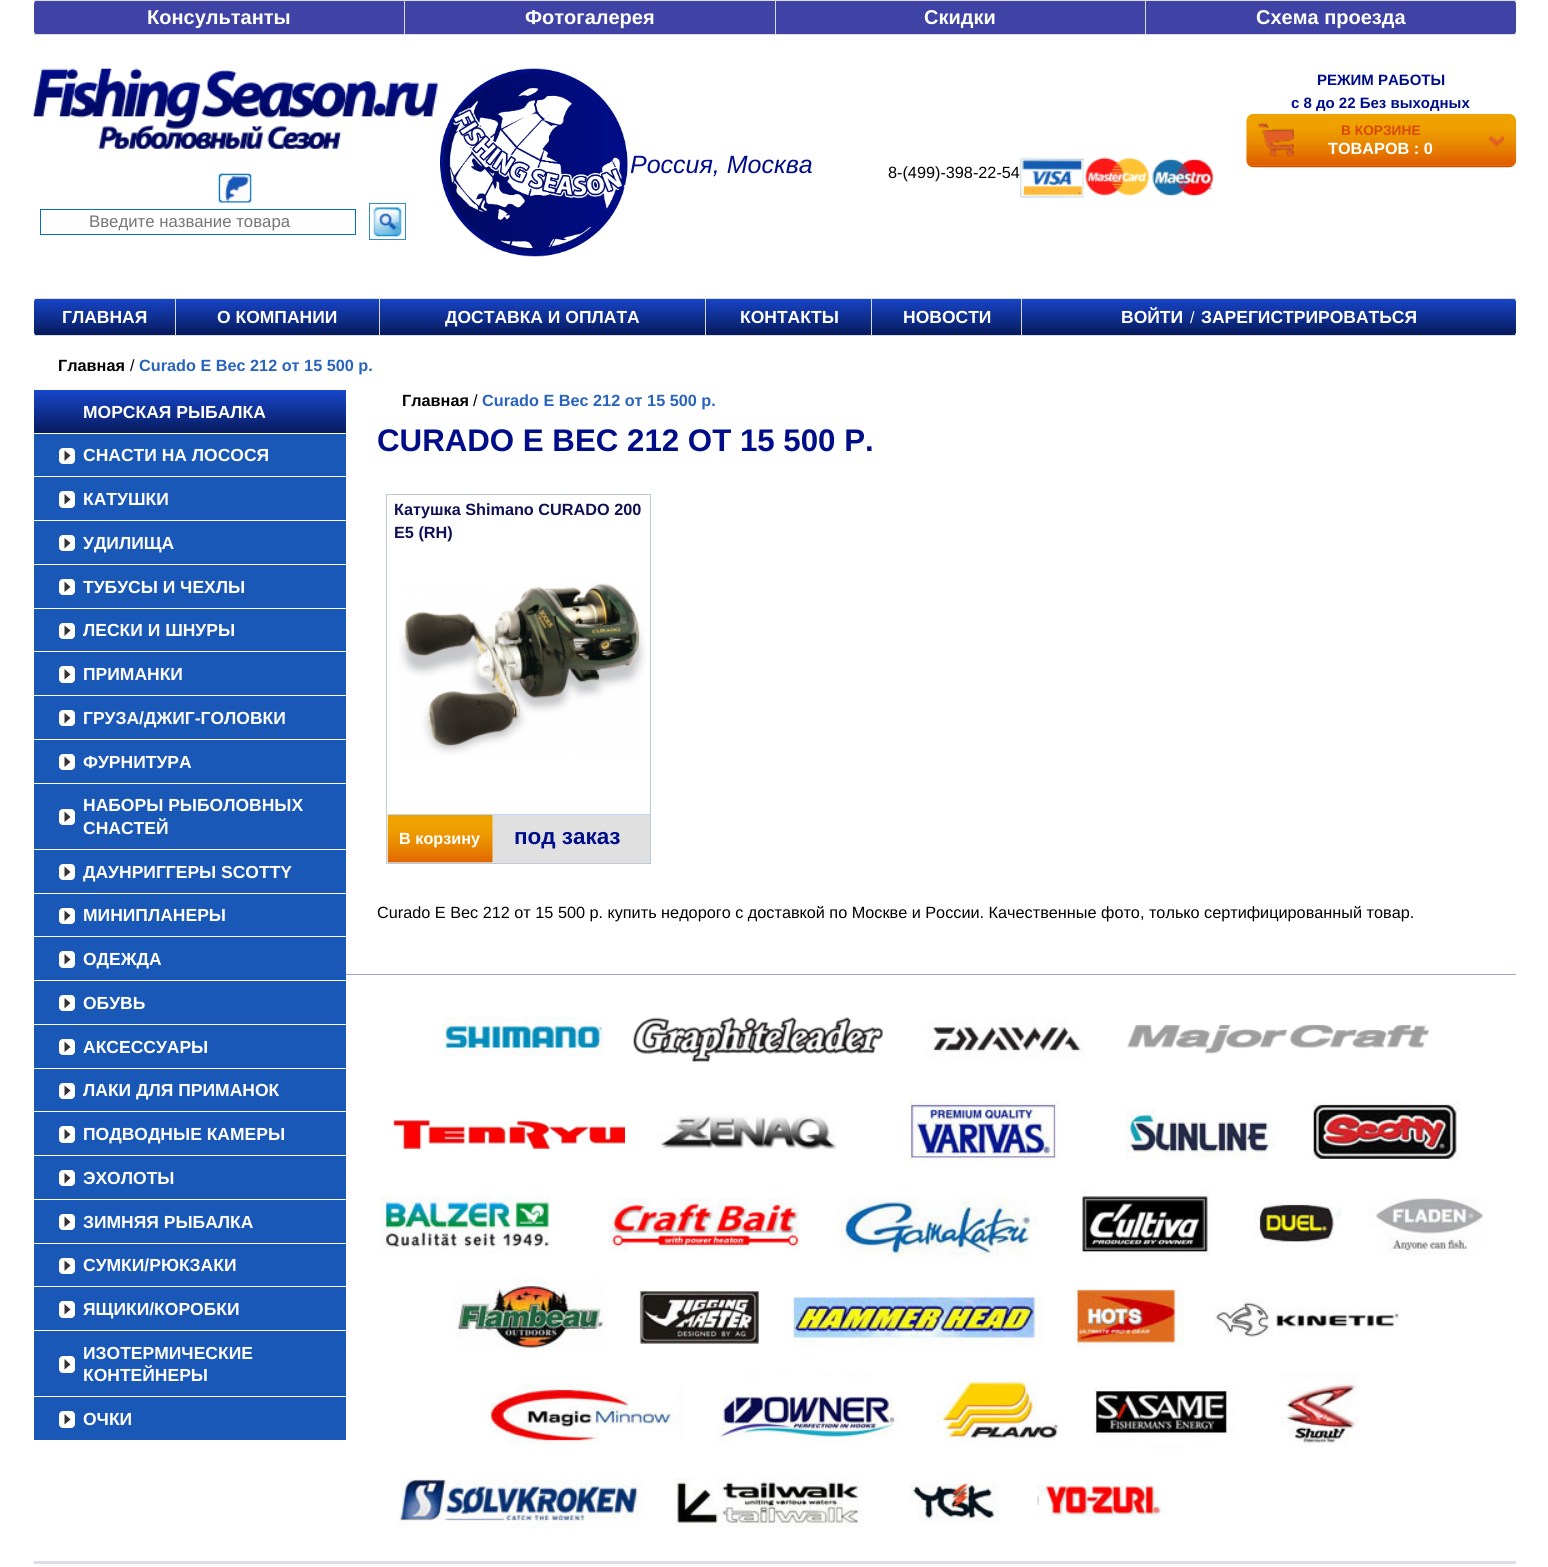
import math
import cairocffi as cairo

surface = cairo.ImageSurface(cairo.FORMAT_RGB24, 1548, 1567)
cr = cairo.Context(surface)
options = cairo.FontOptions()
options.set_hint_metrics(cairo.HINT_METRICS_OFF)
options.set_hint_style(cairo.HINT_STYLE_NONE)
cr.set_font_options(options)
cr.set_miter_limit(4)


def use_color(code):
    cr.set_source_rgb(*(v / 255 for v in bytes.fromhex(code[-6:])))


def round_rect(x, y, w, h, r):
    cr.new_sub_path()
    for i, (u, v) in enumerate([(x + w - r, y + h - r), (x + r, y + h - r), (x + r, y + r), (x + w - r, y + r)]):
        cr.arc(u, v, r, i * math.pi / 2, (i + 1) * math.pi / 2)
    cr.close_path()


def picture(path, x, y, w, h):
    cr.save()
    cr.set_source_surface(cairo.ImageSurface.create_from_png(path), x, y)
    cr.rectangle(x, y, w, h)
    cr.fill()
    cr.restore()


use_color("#ffffff")
cr.paint()
use_color("#3f43a6")
round_rect(34, 0, 1482, 35, 4)
cr.fill()
use_color("#dddddd")
cr.rectangle(34, 0, 1482, 1)
cr.fill()
cr.rectangle(34, 34, 1482, 1)
cr.fill()
cr.select_font_face("Liberation Sans", cairo.FONT_SLANT_NORMAL, cairo.FONT_WEIGHT_BOLD)
cr.set_font_size(20)
use_color("#ffffff")
cr.move_to(147, 24)
cr.show_text("Консультанты")
use_color("#d6d9d8")
cr.rectangle(404, 0, 1, 35)
cr.fill()
use_color("#ffffff")
cr.move_to(525, 24)
cr.show_text("Фотогалерея")
use_color("#d6d9d8")
cr.rectangle(775, 0, 1, 35)
cr.fill()
use_color("#ffffff")
cr.move_to(924, 24)
cr.show_text("Скидки")
use_color("#d6d9d8")
cr.rectangle(1145, 0, 1, 35)
cr.fill()
use_color("#ffffff")
cr.move_to(1256, 24)
cr.show_text("Схема проезда")
picture("img1.png", 440, 68, 188, 189)
cr.set_font_size(15)
use_color("#000d88")
cr.move_to(1317, 85)
cr.show_text("РЕЖИМ РАБОТЫ")
cr.move_to(1291, 108)
cr.show_text("c 8 до 22 Без выходных")
picture("img2.png", 1246, 113, 271, 55)
picture("img3.png", 1258, 123, 36, 34)
cr.set_font_size(13.75)
use_color("#d84800")
cr.move_to(1341, 135)
cr.show_text("В КОРЗИНЕ")
cr.set_font_size(16.25)
use_color("#ffffff")
cr.move_to(1328, 154)
cr.show_text("ТОВАРОВ : 0")
picture("img4.png", 1488, 136, 16, 11)
cr.select_font_face("Liberation Sans", cairo.FONT_SLANT_ITALIC)
cr.set_font_size(25)
use_color("#000d88")
cr.move_to(630, 173)
cr.show_text("Россия, Москва")
cr.select_font_face("Liberation Sans")
cr.set_font_size(16.25)
use_color("#000000")
cr.move_to(888, 178)
cr.show_text("8-(499)-398-22-54")
picture("img5.png", 1020, 157, 64, 41)
picture("img6.png", 1085, 157, 64, 39)
picture("img7.png", 1152, 158, 63, 39)
picture("img8.png", 33, 68, 405, 81)
picture("img9.png", 218, 173, 34, 30)
cr.rectangle(40.5, 209.5, 315, 25)
use_color("#0071bc")
cr.set_line_width(1)
cr.stroke()
cr.set_font_size(16.75)
use_color("#757575")
cr.move_to(89, 227)
cr.show_text("Введите название товара")
cr.rectangle(369.5, 203.5, 36, 36)
use_color("#328dc9")
cr.stroke()
picture("img10.png", 372, 207, 30, 30)
gradient = cairo.LinearGradient(775, 297, 775, 336)
gradient.add_color_stop_rgba(0, 0.094, 0.278, 0.8, 1)
gradient.add_color_stop_rgba(1, 0.024, 0.098, 0.353, 1)
cr.set_source(gradient)
round_rect(34, 298, 1482, 38, 4)
cr.fill()
use_color("#dddddd")
cr.rectangle(34, 298, 1482, 1)
cr.fill()
cr.rectangle(34, 335, 1482, 1)
cr.fill()
cr.select_font_face("Liberation Sans", cairo.FONT_SLANT_NORMAL, cairo.FONT_WEIGHT_BOLD)
cr.set_font_size(17.5)
use_color("#ffffff")
cr.move_to(62, 323)
cr.show_text("ГЛАВНАЯ")
use_color("#d6d9d8")
cr.rectangle(175, 298, 1, 38)
cr.fill()
use_color("#ffffff")
cr.move_to(217, 323)
cr.show_text("О КОМПАНИИ")
use_color("#d6d9d8")
cr.rectangle(379, 298, 1, 38)
cr.fill()
use_color("#ffffff")
cr.move_to(445, 323)
cr.show_text("ДОСТАВКА И ОПЛАТА")
use_color("#d6d9d8")
cr.rectangle(705, 298, 1, 38)
cr.fill()
use_color("#ffffff")
cr.move_to(740, 323)
cr.show_text("КОНТАКТЫ")
use_color("#d6d9d8")
cr.rectangle(871, 298, 1, 38)
cr.fill()
use_color("#ffffff")
cr.move_to(903, 323)
cr.show_text("НОВОСТИ")
use_color("#d6d9d8")
cr.rectangle(1021, 298, 1, 38)
cr.fill()
use_color("#ffffff")
cr.move_to(1121, 323)
cr.show_text("ВОЙТИ")
cr.select_font_face("Liberation Sans")
cr.set_font_size(16.25)
cr.move_to(1190, 323)
cr.show_text("/")
cr.select_font_face("Liberation Sans", cairo.FONT_SLANT_NORMAL, cairo.FONT_WEIGHT_BOLD)
cr.set_font_size(17.5)
cr.move_to(1201, 323)
cr.show_text("ЗАРЕГИСТРИРОВАТЬСЯ")
cr.set_font_size(16.25)
use_color("#000000")
cr.move_to(58, 371)
cr.show_text("Главная")
cr.select_font_face("Liberation Sans")
cr.move_to(130, 371)
cr.show_text("/")
cr.select_font_face("Liberation Sans", cairo.FONT_SLANT_NORMAL, cairo.FONT_WEIGHT_BOLD)
use_color("#2963bd")
cr.move_to(139, 371)
cr.show_text("Curado E Вес 212 от 15 500 р.")
gradient = cairo.LinearGradient(190, 390, 190, 434)
gradient.add_color_stop_rgba(0, 0.094, 0.278, 0.8, 1)
gradient.add_color_stop_rgba(1, 0.024, 0.098, 0.353, 1)
cr.set_source(gradient)
cr.rectangle(34, 390, 312, 43)
cr.fill()
cr.set_font_size(17.5)
use_color("#ffffff")
cr.move_to(83, 418)
cr.show_text("МОРСКАЯ РЫБАЛКА")
use_color("#1a58b8")
cr.rectangle(34, 434, 312, 86)
cr.fill()
use_color("#ffffff")
round_rect(59, 448, 16, 16, 4)
cr.fill()
use_color("#333333")
cr.new_path()
cr.move_to(70.5, 455.5)
cr.line_to(64.5, 461)
cr.line_to(64.5, 450.5)
cr.close_path()
cr.fill()
use_color("#ffffff")
cr.rectangle(34, 476, 312, 1)
cr.fill()
cr.move_to(83, 461)
cr.show_text("СНАСТИ НА ЛОСОСЯ")
round_rect(59, 491, 16, 17, 4)
cr.fill()
use_color("#333333")
cr.new_path()
cr.move_to(70.5, 499.5)
cr.line_to(64.5, 504.5)
cr.line_to(64.5, 494)
cr.close_path()
cr.fill()
use_color("#ffffff")
cr.move_to(83, 505)
cr.show_text("КАТУШКИ")
use_color("#1a58b8")
cr.rectangle(34, 521, 312, 43)
cr.fill()
use_color("#ffffff")
round_rect(59, 535, 16, 16, 4)
cr.fill()
use_color("#333333")
cr.new_path()
cr.move_to(70.5, 543)
cr.line_to(64.5, 548.5)
cr.line_to(64.5, 538)
cr.close_path()
cr.fill()
use_color("#ffffff")
cr.move_to(83, 549)
cr.show_text("УДИЛИЩА")
use_color("#1a58b8")
cr.rectangle(34, 565, 312, 43)
cr.fill()
use_color("#ffffff")
round_rect(59, 579, 16, 16, 4)
cr.fill()
use_color("#333333")
cr.new_path()
cr.move_to(70.5, 587)
cr.line_to(64.5, 592)
cr.line_to(64.5, 581.5)
cr.close_path()
cr.fill()
use_color("#ffffff")
cr.move_to(83, 593)
cr.show_text("ТУБУСЫ И ЧЕХЛЫ")
use_color("#1a58b8")
cr.rectangle(34, 609, 312, 86)
cr.fill()
use_color("#ffffff")
round_rect(59, 623, 16, 16, 4)
cr.fill()
use_color("#333333")
cr.new_path()
cr.move_to(70.5, 630.5)
cr.line_to(64.5, 636)
cr.line_to(64.5, 625.5)
cr.close_path()
cr.fill()
use_color("#ffffff")
cr.rectangle(34, 651, 312, 1)
cr.fill()
cr.move_to(83, 636)
cr.show_text("ЛЕСКИ И ШНУРЫ")
round_rect(59, 666, 16, 17, 4)
cr.fill()
use_color("#333333")
cr.new_path()
cr.move_to(70.5, 674.5)
cr.line_to(64.5, 679.5)
cr.line_to(64.5, 669)
cr.close_path()
cr.fill()
use_color("#ffffff")
cr.move_to(83, 680)
cr.show_text("ПРИМАНКИ")
use_color("#1a58b8")
cr.rectangle(34, 696, 312, 43)
cr.fill()
use_color("#ffffff")
round_rect(59, 710, 16, 16, 4)
cr.fill()
use_color("#333333")
cr.new_path()
cr.move_to(70.5, 718)
cr.line_to(64.5, 723.5)
cr.line_to(64.5, 713)
cr.close_path()
cr.fill()
use_color("#ffffff")
cr.move_to(83, 724)
cr.show_text("ГРУЗА/ДЖИГ-ГОЛОВКИ")
use_color("#1a58b8")
cr.rectangle(34, 740, 312, 43)
cr.fill()
use_color("#ffffff")
round_rect(59, 754, 16, 16, 4)
cr.fill()
use_color("#333333")
cr.new_path()
cr.move_to(70.5, 762)
cr.line_to(64.5, 767)
cr.line_to(64.5, 756.5)
cr.close_path()
cr.fill()
use_color("#ffffff")
cr.move_to(83, 768)
cr.show_text("ФУРНИТУРА")
use_color("#1a58b8")
cr.rectangle(34, 784, 312, 65)
cr.fill()
use_color("#ffffff")
round_rect(59, 809, 16, 16, 4)
cr.fill()
use_color("#333333")
cr.new_path()
cr.move_to(70.5, 817)
cr.line_to(64.5, 822)
cr.line_to(64.5, 811.5)
cr.close_path()
cr.fill()
use_color("#ffffff")
cr.move_to(83, 811)
cr.show_text("НАБОРЫ РЫБОЛОВНЫХ")
cr.move_to(83, 834)
cr.show_text("СНАСТЕЙ")
use_color("#1a58b8")
cr.rectangle(34, 850, 312, 43)
cr.fill()
use_color("#ffffff")
round_rect(59, 864, 16, 16, 4)
cr.fill()
use_color("#333333")
cr.new_path()
cr.move_to(70.5, 872)
cr.line_to(64.5, 877)
cr.line_to(64.5, 866.5)
cr.close_path()
cr.fill()
use_color("#ffffff")
cr.move_to(83, 878)
cr.show_text("ДАУНРИГГЕРЫ SCOTTY")
use_color("#1a58b8")
cr.rectangle(34, 894, 312, 86)
cr.fill()
use_color("#ffffff")
round_rect(59, 908, 16, 16, 4)
cr.fill()
use_color("#333333")
cr.new_path()
cr.move_to(70.5, 915.5)
cr.line_to(64.5, 921)
cr.line_to(64.5, 910.5)
cr.close_path()
cr.fill()
use_color("#ffffff")
cr.rectangle(34, 936, 312, 1)
cr.fill()
cr.move_to(83, 921)
cr.show_text("МИНИПЛАНЕРЫ")
round_rect(59, 951, 16, 17, 4)
cr.fill()
use_color("#333333")
cr.new_path()
cr.move_to(70.5, 959.5)
cr.line_to(64.5, 964.5)
cr.line_to(64.5, 954)
cr.close_path()
cr.fill()
use_color("#ffffff")
cr.move_to(83, 965)
cr.show_text("ОДЕЖДА")
use_color("#1a58b8")
cr.rectangle(34, 981, 312, 43)
cr.fill()
use_color("#ffffff")
round_rect(59, 995, 16, 16, 4)
cr.fill()
use_color("#333333")
cr.new_path()
cr.move_to(70.5, 1003)
cr.line_to(64.5, 1008.5)
cr.line_to(64.5, 998)
cr.close_path()
cr.fill()
use_color("#ffffff")
cr.move_to(83, 1009)
cr.show_text("ОБУВЬ")
use_color("#1a58b8")
cr.rectangle(34, 1025, 312, 43)
cr.fill()
use_color("#ffffff")
round_rect(59, 1039, 16, 16, 4)
cr.fill()
use_color("#333333")
cr.new_path()
cr.move_to(70.5, 1047)
cr.line_to(64.5, 1052)
cr.line_to(64.5, 1041.5)
cr.close_path()
cr.fill()
use_color("#ffffff")
cr.move_to(83, 1053)
cr.show_text("АКСЕССУАРЫ")
use_color("#1a58b8")
cr.rectangle(34, 1069, 312, 86)
cr.fill()
use_color("#ffffff")
round_rect(59, 1083, 16, 16, 4)
cr.fill()
use_color("#333333")
cr.new_path()
cr.move_to(70.5, 1090.5)
cr.line_to(64.5, 1096)
cr.line_to(64.5, 1085.5)
cr.close_path()
cr.fill()
use_color("#ffffff")
cr.rectangle(34, 1111, 312, 1)
cr.fill()
cr.move_to(83, 1096)
cr.show_text("ЛАКИ ДЛЯ ПРИМАНОК")
round_rect(59, 1126, 16, 17, 4)
cr.fill()
use_color("#333333")
cr.new_path()
cr.move_to(70.5, 1134.5)
cr.line_to(64.5, 1139.5)
cr.line_to(64.5, 1129)
cr.close_path()
cr.fill()
use_color("#ffffff")
cr.move_to(83, 1140)
cr.show_text("ПОДВОДНЫЕ КАМЕРЫ")
use_color("#1a58b8")
cr.rectangle(34, 1156, 312, 43)
cr.fill()
use_color("#ffffff")
round_rect(59, 1170, 16, 16, 4)
cr.fill()
use_color("#333333")
cr.new_path()
cr.move_to(70.5, 1178)
cr.line_to(64.5, 1183.5)
cr.line_to(64.5, 1173)
cr.close_path()
cr.fill()
use_color("#ffffff")
cr.move_to(83, 1184)
cr.show_text("ЭХОЛОТЫ")
use_color("#1a58b8")
cr.rectangle(34, 1200, 312, 43)
cr.fill()
use_color("#ffffff")
round_rect(59, 1214, 16, 16, 4)
cr.fill()
use_color("#333333")
cr.new_path()
cr.move_to(70.5, 1222)
cr.line_to(64.5, 1227)
cr.line_to(64.5, 1216.5)
cr.close_path()
cr.fill()
use_color("#ffffff")
cr.move_to(83, 1228)
cr.show_text("ЗИМНЯЯ РЫБАЛКА")
use_color("#1a58b8")
cr.rectangle(34, 1244, 312, 86)
cr.fill()
use_color("#ffffff")
round_rect(59, 1258, 16, 16, 4)
cr.fill()
use_color("#333333")
cr.new_path()
cr.move_to(70.5, 1265.5)
cr.line_to(64.5, 1271)
cr.line_to(64.5, 1260.5)
cr.close_path()
cr.fill()
use_color("#ffffff")
cr.rectangle(34, 1286, 312, 1)
cr.fill()
cr.move_to(83, 1271)
cr.show_text("СУМКИ/РЮКЗАКИ")
round_rect(59, 1301, 16, 17, 4)
cr.fill()
use_color("#333333")
cr.new_path()
cr.move_to(70.5, 1309.5)
cr.line_to(64.5, 1314.5)
cr.line_to(64.5, 1304)
cr.close_path()
cr.fill()
use_color("#ffffff")
cr.move_to(83, 1315)
cr.show_text("ЯЩИКИ/КОРОБКИ")
use_color("#1a58b8")
cr.rectangle(34, 1331, 312, 109)
cr.fill()
use_color("#ffffff")
round_rect(59, 1356, 16, 17, 4)
cr.fill()
use_color("#333333")
cr.new_path()
cr.move_to(70.5, 1364.5)
cr.line_to(64.5, 1369.5)
cr.line_to(64.5, 1359)
cr.close_path()
cr.fill()
use_color("#ffffff")
cr.rectangle(34, 1396, 312, 1)
cr.fill()
cr.move_to(83, 1359)
cr.show_text("ИЗОТЕРМИЧЕСКИЕ")
cr.move_to(83, 1381)
cr.show_text("КОНТЕЙНЕРЫ")
round_rect(59, 1411, 16, 17, 4)
cr.fill()
use_color("#333333")
cr.new_path()
cr.move_to(70.5, 1419.5)
cr.line_to(64.5, 1424.5)
cr.line_to(64.5, 1414)
cr.close_path()
cr.fill()
use_color("#ffffff")
cr.move_to(83, 1425)
cr.show_text("ОЧКИ")
cr.set_font_size(16.25)
use_color("#000000")
cr.move_to(402, 406)
cr.show_text("Главная")
cr.select_font_face("Liberation Sans")
cr.move_to(473, 406)
cr.show_text("/")
cr.select_font_face("Liberation Sans", cairo.FONT_SLANT_NORMAL, cairo.FONT_WEIGHT_BOLD)
use_color("#2963bd")
cr.move_to(482, 406)
cr.show_text("Curado E Вес 212 от 15 500 р.")
cr.set_font_size(31.25)
use_color("#000d88")
cr.move_to(377, 451)
cr.show_text("CURADO E ВЕС 212 ОТ 15 500 Р.")
cr.rectangle(386.5, 494.5, 264, 369)
use_color("#bdccd4")
cr.stroke()
cr.set_font_size(16.25)
use_color("#101055")
cr.move_to(394, 515)
cr.show_text("Катушка Shimano CURADO 200")
cr.move_to(394, 538)
cr.show_text("E5 (RH)")
picture("img11.png", 398, 583, 248, 172)
use_color("#e0e0e0")
cr.rectangle(388, 815, 262, 48)
cr.fill()
use_color("#bbd6fb")
cr.rectangle(388, 814, 262, 1)
cr.fill()
picture("img12.png", 387, 815, 106, 48)
use_color("#ffffff")
cr.move_to(399, 844)
cr.show_text("В корзину")
cr.set_font_size(22.5)
use_color("#000d88")
cr.move_to(514, 844)
cr.show_text("под заказ")
cr.select_font_face("Liberation Sans")
cr.set_font_size(16.25)
use_color("#000000")
cr.move_to(377, 918)
cr.show_text("Curado E Вес 212 от 15 500 р. купить недорого с доставкой по Москве и России. Качественные фото, только сертифицированный товар.")
use_color("#9fa1d3")
cr.rectangle(346, 974, 1170, 1)
cr.fill()
use_color("#dbdcee")
cr.rectangle(34, 1561, 1482, 3)
cr.fill()
picture("img13.png", 444, 1016, 160, 41)
picture("img14.png", 633, 1017, 250, 45)
picture("img15.png", 927, 1018, 157, 40)
picture("img16.png", 1127, 1024, 302, 30)
picture("img17.png", 393, 1119, 232, 32)
picture("img18.png", 656, 1114, 181, 36)
picture("img19.png", 910, 1100, 150, 62)
picture("img20.png", 1126, 1109, 150, 50)
picture("img21.png", 1311, 1101, 150, 60)
picture("img22.png", 380, 1195, 170, 60)
picture("img23.png", 608, 1197, 191, 55)
picture("img24.png", 836, 1196, 202, 64)
picture("img25.png", 1081, 1189, 130, 68)
picture("img26.png", 1254, 1199, 88, 48)
picture("img27.png", 1368, 1198, 119, 57)
picture("img28.png", 455, 1278, 150, 75)
picture("img29.png", 639, 1291, 120, 53)
picture("img30.png", 793, 1295, 251, 51)
picture("img31.png", 1074, 1288, 110, 61)
picture("img32.png", 1214, 1297, 186, 40)
picture("img33.png", 488, 1383, 195, 61)
picture("img34.png", 717, 1374, 184, 71)
picture("img35.png", 936, 1379, 125, 63)
picture("img36.png", 1094, 1386, 140, 63)
picture("img37.png", 1279, 1372, 80, 74)
picture("img38.png", 398, 1479, 243, 50)
picture("img39.png", 674, 1478, 189, 50)
picture("img40.png", 909, 1479, 90, 44)
picture("img41.png", 1037, 1485, 129, 32)
surface.write_to_png("result.png")
